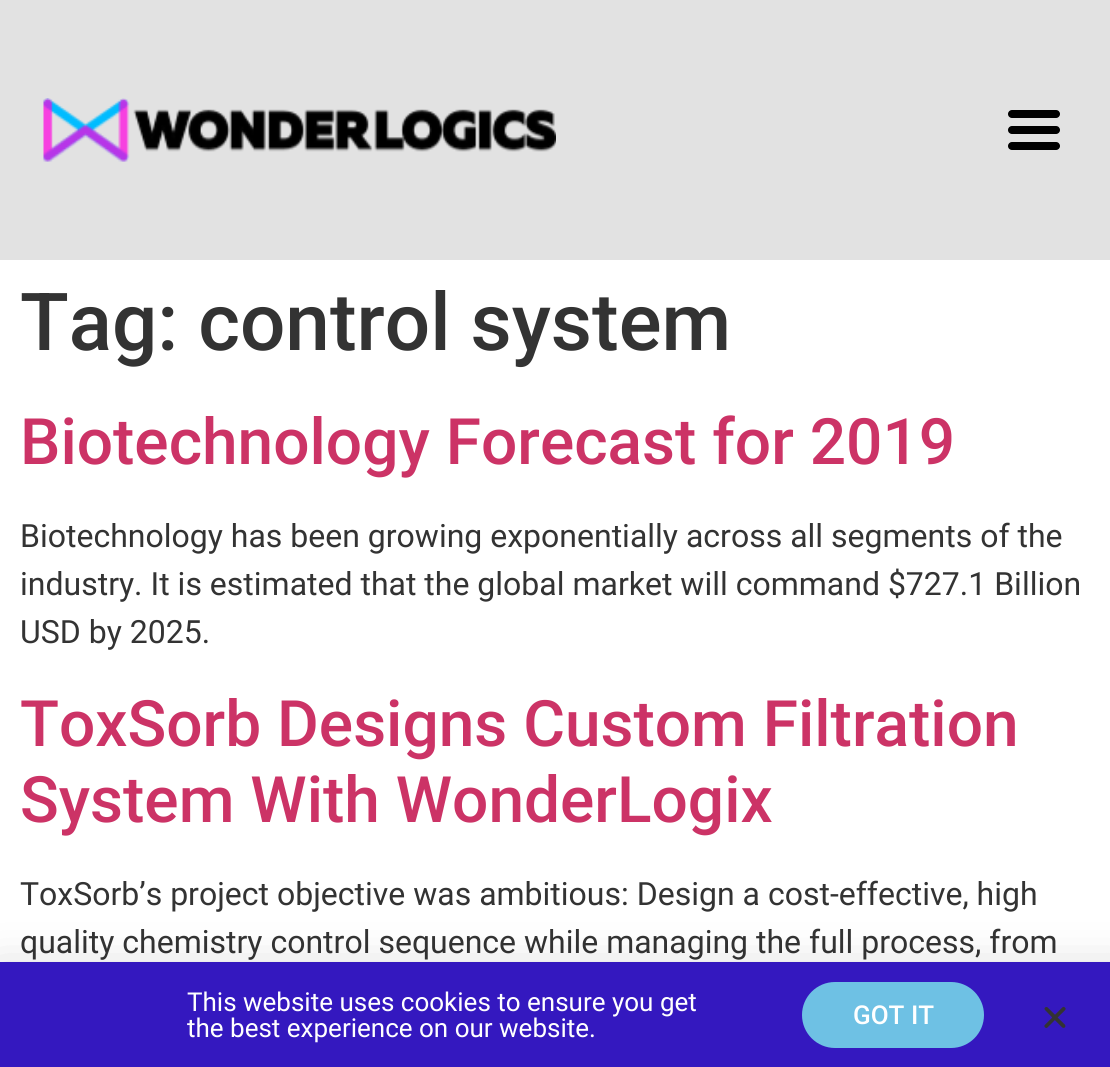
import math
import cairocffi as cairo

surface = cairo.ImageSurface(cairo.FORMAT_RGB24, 1110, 1067)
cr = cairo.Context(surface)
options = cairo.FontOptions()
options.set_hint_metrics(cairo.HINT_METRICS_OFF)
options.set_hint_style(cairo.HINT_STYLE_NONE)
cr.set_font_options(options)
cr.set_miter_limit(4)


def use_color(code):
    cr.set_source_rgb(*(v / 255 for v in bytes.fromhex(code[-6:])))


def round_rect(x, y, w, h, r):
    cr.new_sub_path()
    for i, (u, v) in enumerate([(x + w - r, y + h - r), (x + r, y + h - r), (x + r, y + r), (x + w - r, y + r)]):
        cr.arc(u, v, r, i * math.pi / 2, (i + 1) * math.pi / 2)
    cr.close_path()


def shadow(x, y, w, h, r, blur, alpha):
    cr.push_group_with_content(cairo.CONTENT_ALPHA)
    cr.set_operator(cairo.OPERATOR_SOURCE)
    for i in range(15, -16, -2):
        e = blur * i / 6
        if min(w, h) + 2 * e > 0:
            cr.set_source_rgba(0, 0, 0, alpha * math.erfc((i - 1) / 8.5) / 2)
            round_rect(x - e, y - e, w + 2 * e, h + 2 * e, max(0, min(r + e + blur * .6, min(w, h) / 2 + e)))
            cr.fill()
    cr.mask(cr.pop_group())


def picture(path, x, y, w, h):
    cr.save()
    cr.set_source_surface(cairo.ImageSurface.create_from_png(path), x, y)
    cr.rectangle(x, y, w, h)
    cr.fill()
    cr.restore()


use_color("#ffffff")
cr.paint()
use_color("#e2e2e2")
cr.rectangle(0, 0, 1110, 260)
cr.fill()
picture("img1.png", 43, 98, 513, 64)
use_color("#000000")
round_rect(1008, 126, 52, 8, 4)
cr.fill()
round_rect(1008, 110, 52, 8, 4)
cr.fill()
round_rect(1008, 142, 52, 8, 4)
cr.fill()
cr.select_font_face("Roboto Medium")
cr.set_font_size(80)
use_color("#333333")
cr.move_to(20, 350)
cr.show_text("Tag: control system")
cr.set_font_size(64)
use_color("#cc3366")
cr.move_to(20, 464)
cr.show_text("Biotechnology Forecast for 2019")
cr.select_font_face("Roboto")
cr.set_font_size(32)
use_color("#333333")
cr.move_to(20, 547)
cr.show_text("Biotechnology has been growing exponentially across all segments of the")
cr.move_to(20, 595)
cr.show_text("industry. It is estimated that the global market will command $727.1 Billion")
cr.move_to(20, 643)
cr.show_text("USD by 2025.")
cr.select_font_face("Roboto Medium")
cr.set_font_size(64)
use_color("#cc3366")
cr.move_to(20, 746)
cr.show_text("ToxSorb Designs Custom Filtration")
cr.move_to(20, 822)
cr.show_text("System With WonderLogix")
cr.select_font_face("Roboto")
cr.set_font_size(32)
use_color("#333333")
cr.move_to(20, 905)
cr.show_text("ToxSorb’s project objective was ambitious: Design a cost-effective, high")
cr.move_to(20, 953)
cr.show_text("quality chemistry control sequence while managing the full process, from")
use_color("#000000")
shadow(-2, 972, 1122, 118, 0, 23, 0.2)
use_color("#3418bf")
cr.rectangle(0, 962, 1110, 105)
cr.fill()
cr.set_font_size(26)
use_color("#ffffff")
cr.move_to(187, 1011)
cr.show_text("This website uses cookies to ensure you get")
cr.move_to(187, 1037)
cr.show_text("the best experience on our website.")
use_color("#6ec1e4")
round_rect(802, 982, 182, 66, 33)
cr.fill()
cr.select_font_face("Roboto Medium")
use_color("#ffffff")
cr.move_to(853, 1024)
cr.show_text("GOT IT")
picture("img2.png", 1044, 1006, 22, 22)
surface.write_to_png("result.png")
